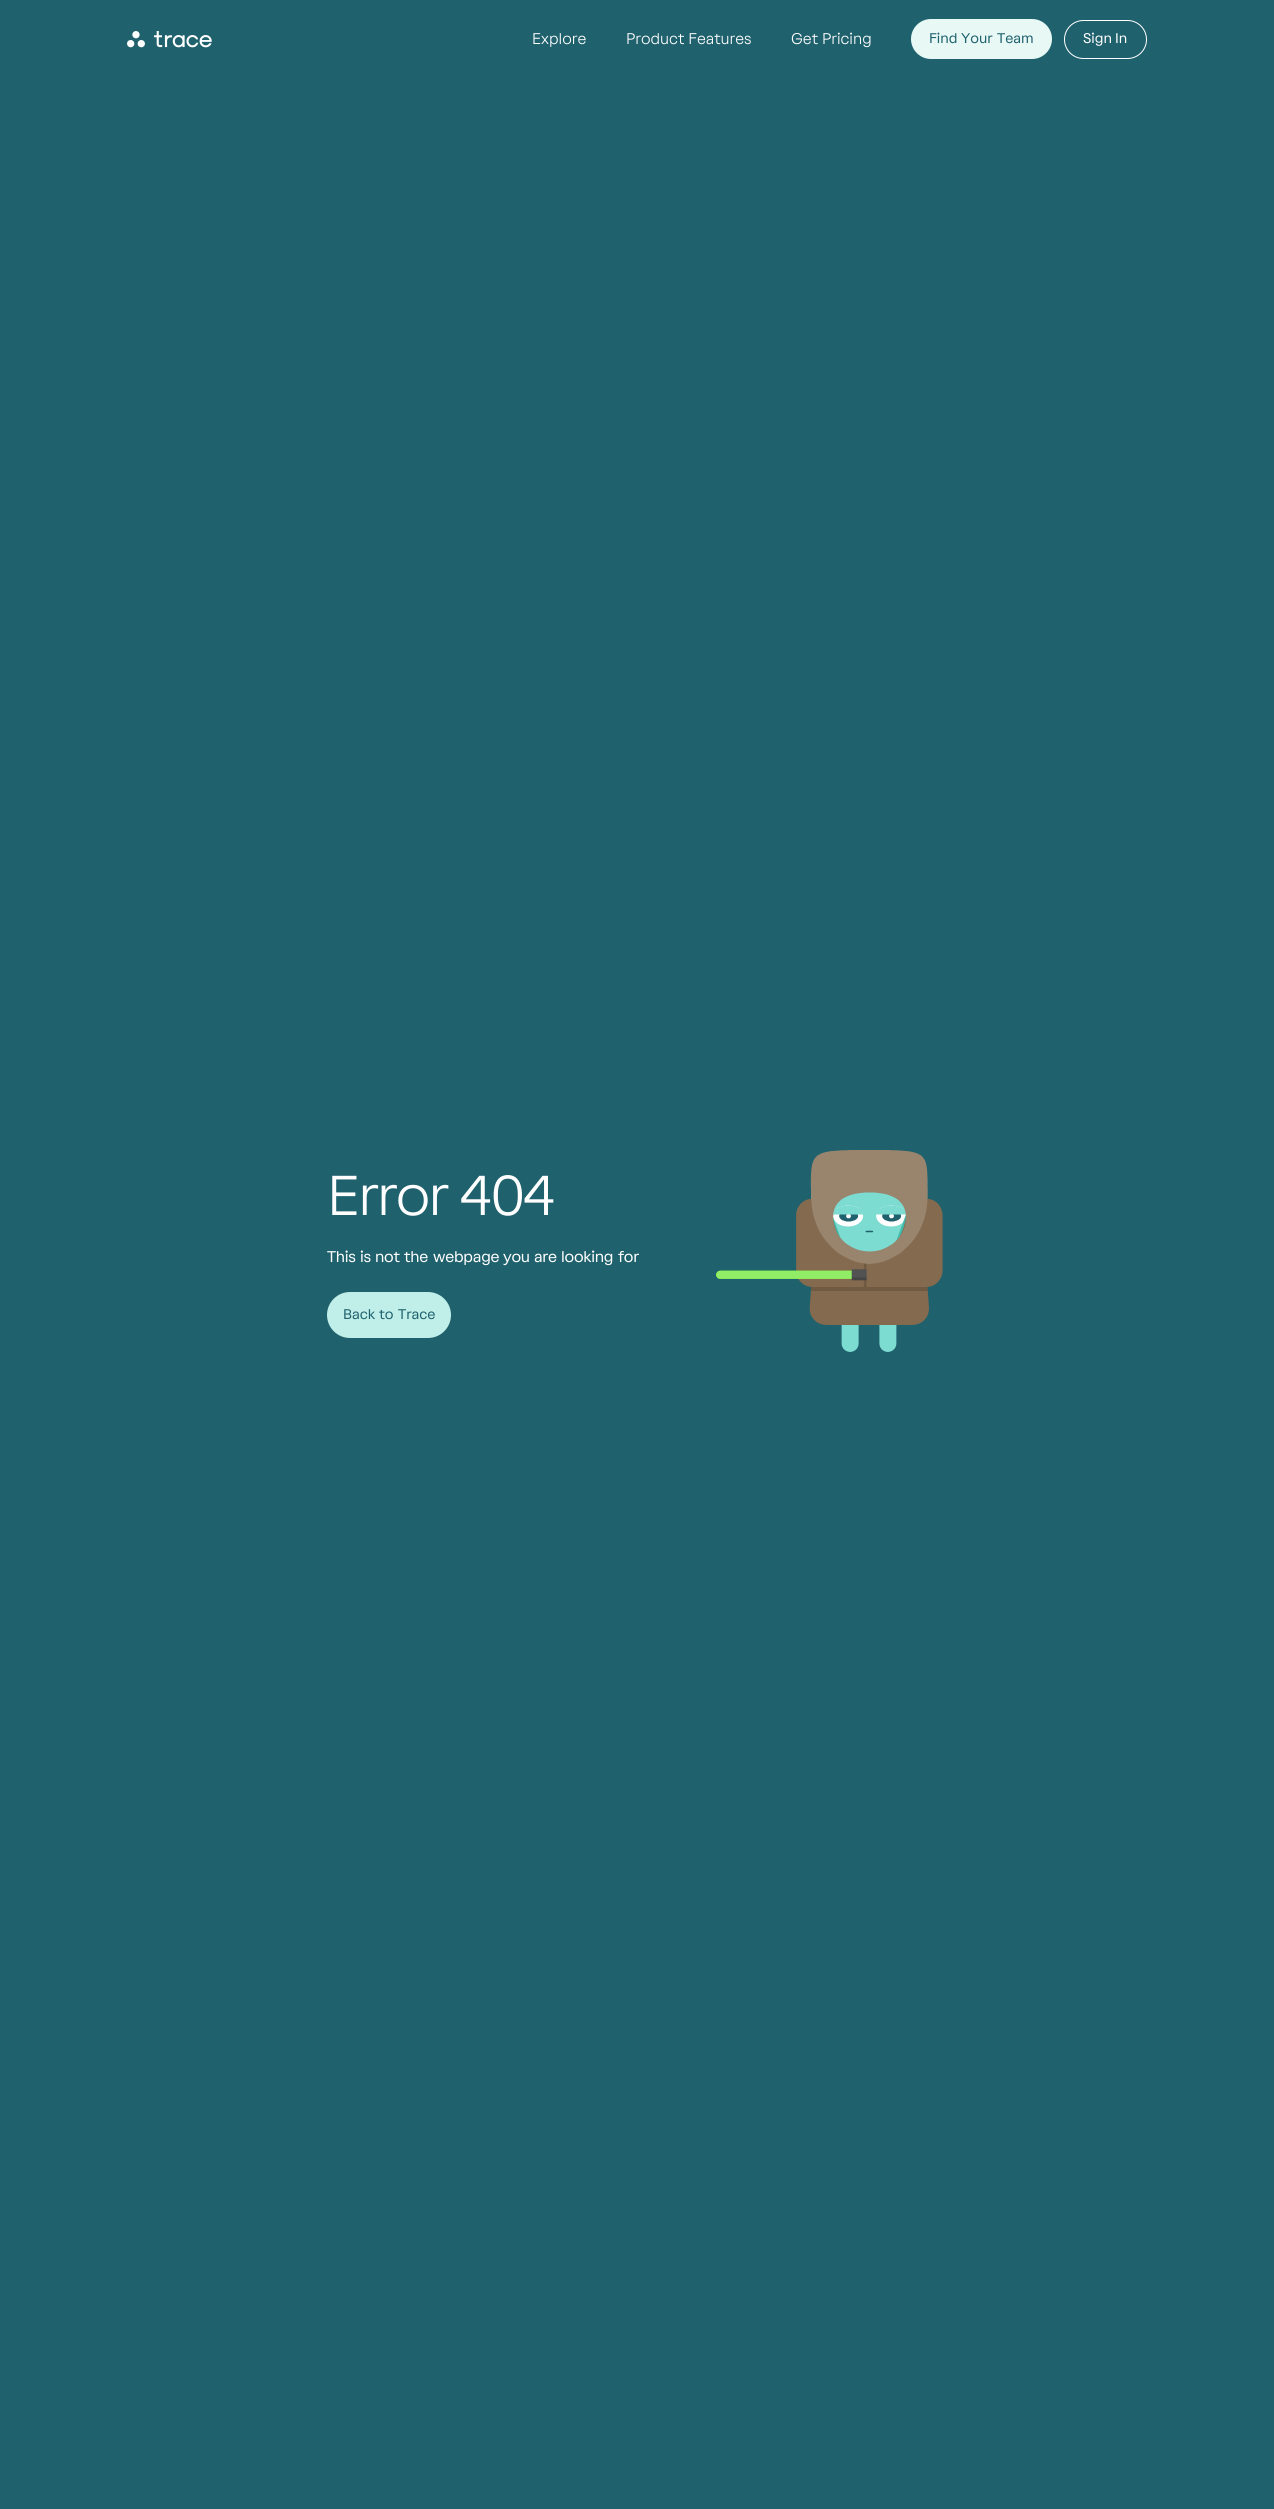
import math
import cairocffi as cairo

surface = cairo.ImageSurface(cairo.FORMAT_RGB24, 1274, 2509)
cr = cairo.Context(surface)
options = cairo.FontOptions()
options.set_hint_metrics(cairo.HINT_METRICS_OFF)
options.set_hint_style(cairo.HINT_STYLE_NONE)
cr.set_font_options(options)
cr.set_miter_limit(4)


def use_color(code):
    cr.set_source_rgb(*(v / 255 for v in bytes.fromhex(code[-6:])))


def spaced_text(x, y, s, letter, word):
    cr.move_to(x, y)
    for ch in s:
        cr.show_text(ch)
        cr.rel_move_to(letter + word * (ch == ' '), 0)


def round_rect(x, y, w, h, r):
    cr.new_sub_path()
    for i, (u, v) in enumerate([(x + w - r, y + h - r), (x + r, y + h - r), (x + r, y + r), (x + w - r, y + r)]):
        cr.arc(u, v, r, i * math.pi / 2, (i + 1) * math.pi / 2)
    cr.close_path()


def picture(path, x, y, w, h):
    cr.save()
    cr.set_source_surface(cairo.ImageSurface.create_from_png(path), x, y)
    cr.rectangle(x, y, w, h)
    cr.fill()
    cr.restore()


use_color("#1f616d")
cr.paint()
picture("img1.png", 127, 31, 85, 17)
cr.select_font_face("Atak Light")
cr.set_font_size(15.5)
use_color("#ffffff")
cr.move_to(532, 44)
cr.show_text("Explore")
cr.move_to(626, 44)
cr.show_text("Product Features")
cr.move_to(791, 44)
cr.show_text("Get Pricing")
use_color("#e7f8f5")
round_rect(911, 19, 141, 40, 20)
cr.fill()
cr.select_font_face("Atak")
cr.set_font_size(14)
use_color("#1f616d")
cr.move_to(929, 43)
cr.show_text("Find")
cr.move_to(961, 43)
cr.show_text("Your")
cr.move_to(997, 43)
cr.show_text("Team")
round_rect(1064.5, 20.5, 82, 38, 19)
use_color("#ffffff")
cr.set_line_width(1)
cr.stroke()
cr.move_to(1083, 43)
cr.show_text("Sign")
cr.move_to(1115, 43)
cr.show_text("In")
cr.select_font_face("Atak Light")
cr.set_font_size(56)
spaced_text(327, 1215, "Error 404", -1.75, 0)
cr.select_font_face("Atak")
cr.set_font_size(15.5)
spaced_text(327, 1262, "This", -0.25, 0)
spaced_text(360, 1262, "is", -0.25, 0)
spaced_text(375, 1262, "not", -0.25, 0)
spaced_text(404, 1262, "the", -0.25, 0)
spaced_text(433, 1262, "webpage", -0.25, 0)
spaced_text(503, 1262, "you", -0.25, 0)
spaced_text(534, 1262, "are", -0.25, 0)
spaced_text(561, 1262, "looking", -0.25, 0)
spaced_text(618, 1262, "for", -0.25, 0)
use_color("#c0eee8")
round_rect(327, 1292, 124, 46, 23)
cr.fill()
cr.set_font_size(14)
use_color("#1f616d")
cr.move_to(343, 1319)
cr.show_text("Back")
cr.move_to(379, 1319)
cr.show_text("to")
cr.move_to(398, 1319)
cr.show_text("Trace")
picture("img2.png", 716, 1150, 227, 202)
surface.write_to_png("result.png")
